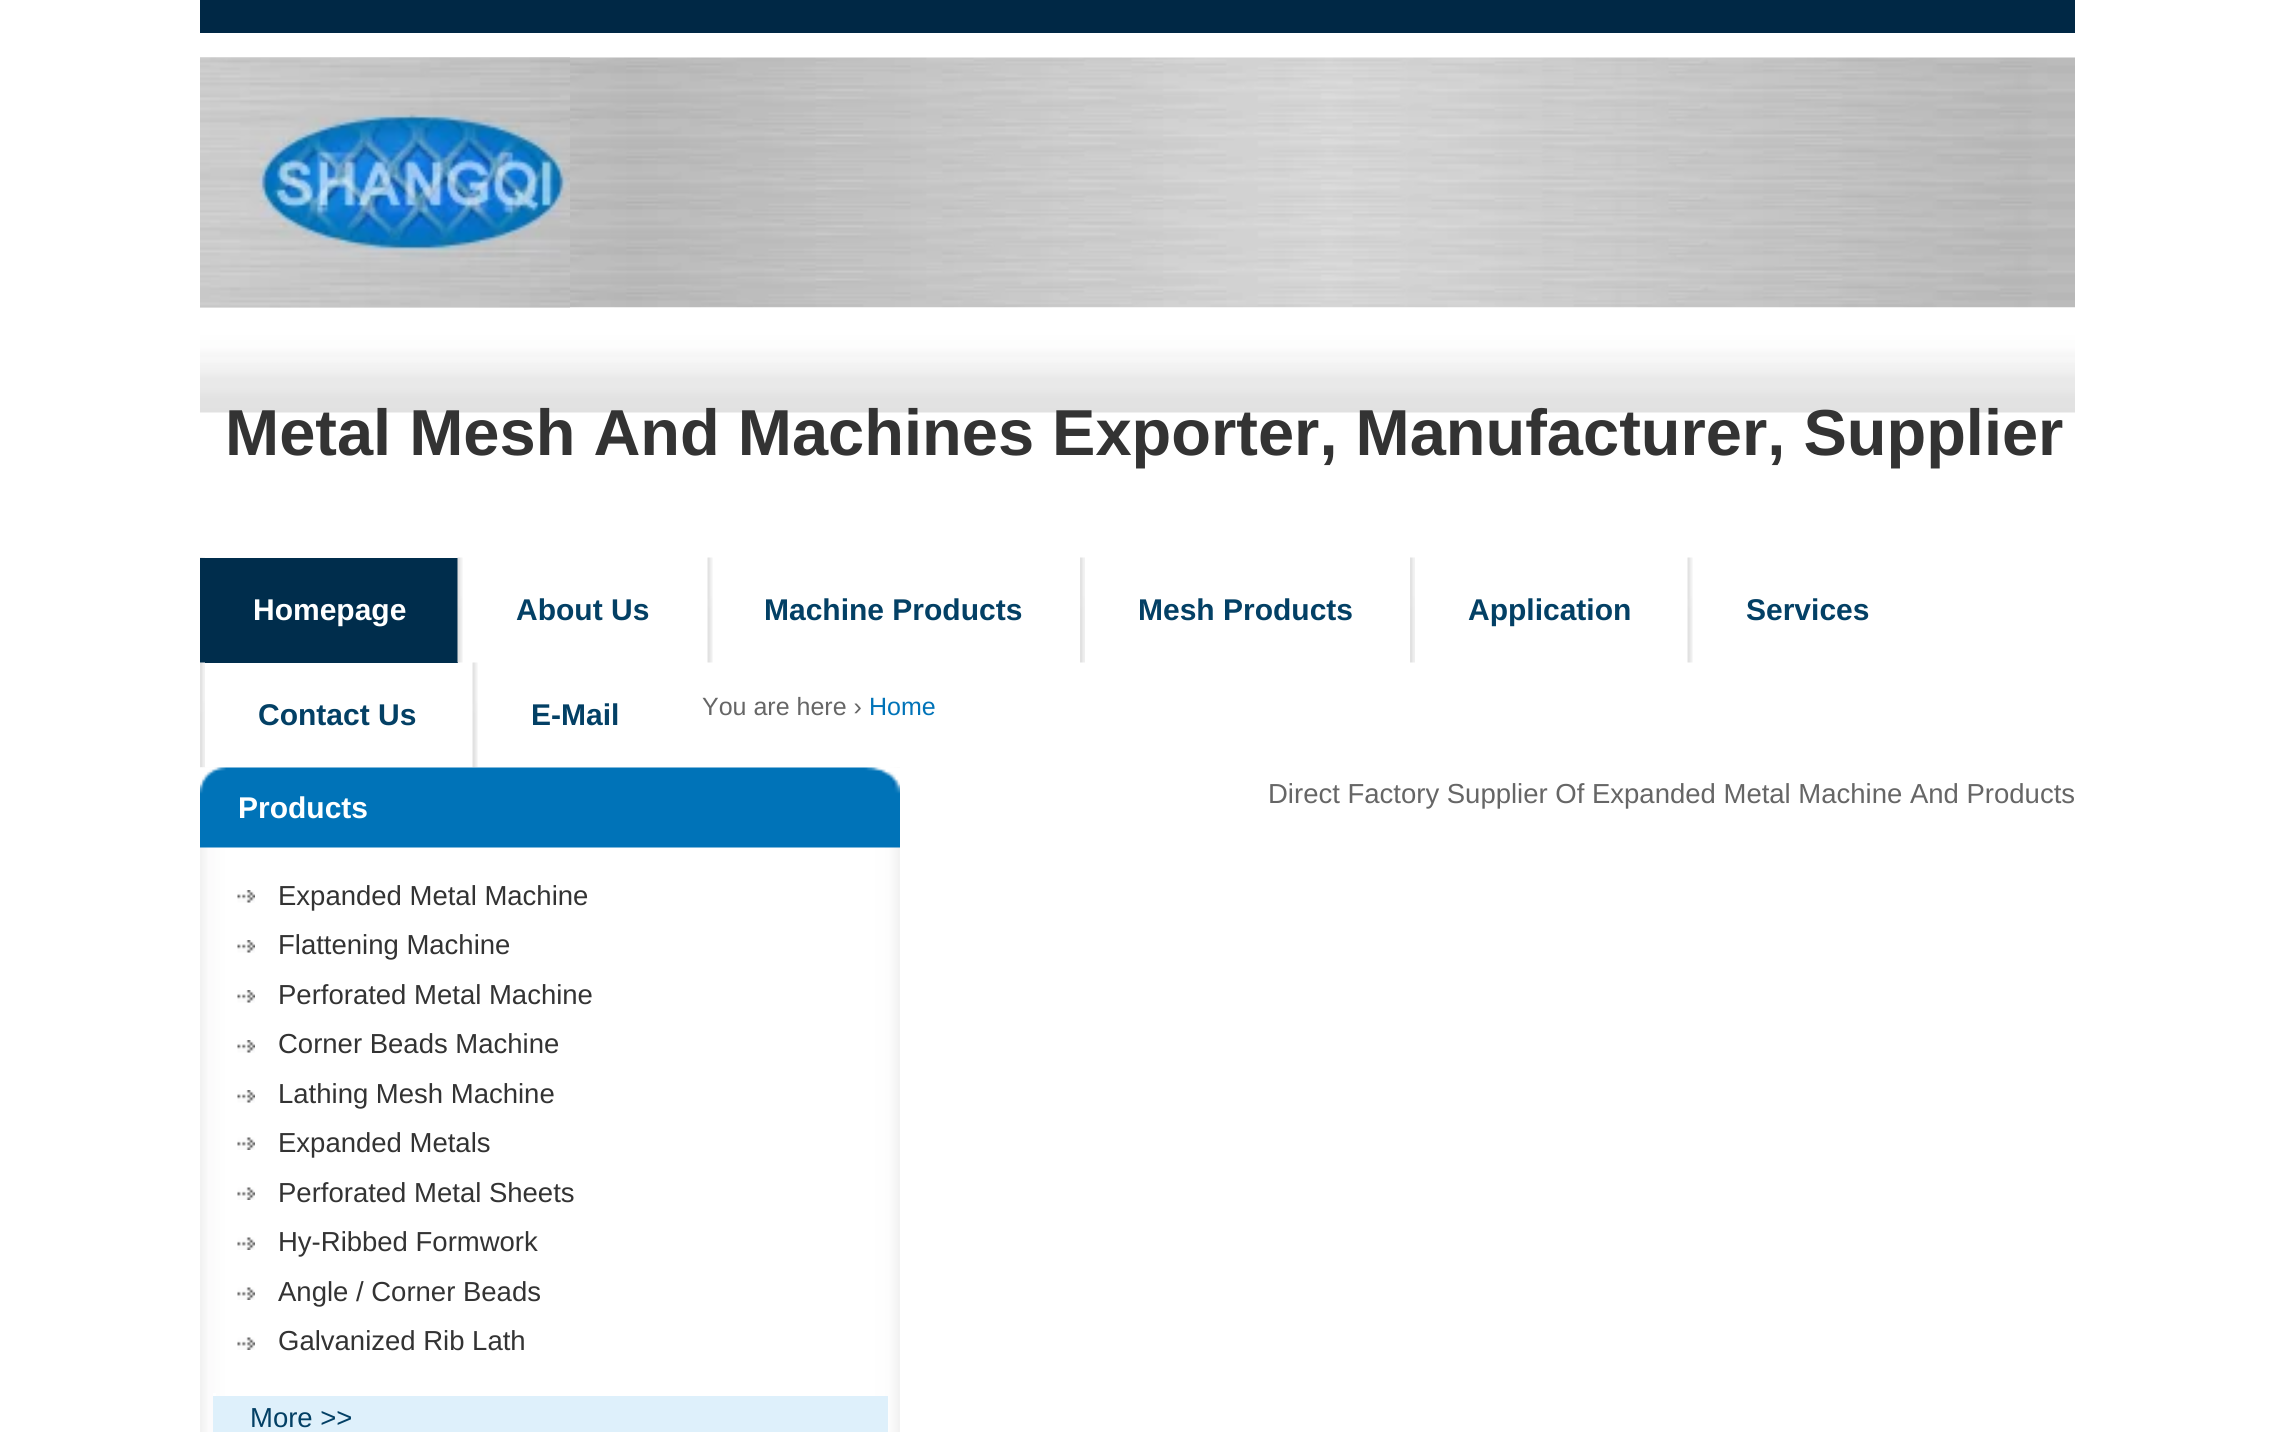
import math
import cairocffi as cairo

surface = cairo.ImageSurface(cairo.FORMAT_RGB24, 2274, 1432)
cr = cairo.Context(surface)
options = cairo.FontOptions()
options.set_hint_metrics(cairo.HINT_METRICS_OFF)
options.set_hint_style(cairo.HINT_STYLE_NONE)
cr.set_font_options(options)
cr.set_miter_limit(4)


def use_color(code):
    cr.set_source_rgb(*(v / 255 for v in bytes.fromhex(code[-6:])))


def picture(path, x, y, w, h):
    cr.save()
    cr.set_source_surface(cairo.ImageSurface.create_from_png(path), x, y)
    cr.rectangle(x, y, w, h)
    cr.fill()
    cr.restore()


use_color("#ffffff")
cr.paint()
use_color("#002845")
cr.rectangle(200, 0, 1875, 33)
cr.fill()
picture("img1.png", 200, 57, 1875, 251)
picture("img3.png", 200, 307, 1875, 106)
picture("img2.png", 200, 57, 370, 251)
cr.select_font_face("Liberation Sans", cairo.FONT_SLANT_NORMAL, cairo.FONT_WEIGHT_BOLD)
cr.set_font_size(65)
use_color("#333333")
cr.move_to(225, 455)
cr.show_text("Metal Mesh And Machines Exporter, Manufacturer, Supplier")
picture("img4.png", 200, 557, 5, 1)
use_color("#002d4c")
cr.rectangle(200, 558, 258, 105)
cr.fill()
cr.set_font_size(30)
use_color("#ffffff")
cr.move_to(253, 620)
cr.show_text("Homepage")
picture("img5.png", 457, 557, 6, 106)
use_color("#034065")
cr.move_to(516, 620)
cr.show_text("About Us")
picture("img6.png", 707, 557, 6, 106)
cr.move_to(764, 620)
cr.show_text("Machine Products")
picture("img7.png", 1080, 557, 5, 106)
cr.move_to(1138, 620)
cr.show_text("Mesh Products")
picture("img7.png", 1410, 557, 5, 106)
cr.move_to(1468, 620)
cr.show_text("Application")
picture("img6.png", 1687, 557, 6, 106)
cr.move_to(1746, 620)
cr.show_text("Services")
picture("img8.png", 200, 662, 5, 106)
cr.move_to(258, 725)
cr.show_text("Contact Us")
picture("img6.png", 472, 662, 6, 106)
cr.move_to(531, 725)
cr.show_text("E-Mail")
cr.select_font_face("Liberation Sans")
cr.set_font_size(25)
use_color("#666666")
cr.move_to(702, 715)
cr.show_text("You are here ›")
use_color("#0073b8")
cr.move_to(869, 715)
cr.show_text("Home")
cr.set_font_size(27.5)
use_color("#666666")
cr.move_to(1268, 803)
cr.show_text("Direct Factory Supplier Of Expanded Metal Machine And Products")
picture("img9.png", 200, 767, 700, 665)
picture("img10.png", 200, 767, 700, 81)
cr.select_font_face("Liberation Sans", cairo.FONT_SLANT_NORMAL, cairo.FONT_WEIGHT_BOLD)
cr.set_font_size(30)
use_color("#ffffff")
cr.move_to(238, 818)
cr.show_text("Products")
picture("img11.png", 237, 890, 18, 13)
cr.select_font_face("Liberation Sans")
cr.set_font_size(27.5)
use_color("#333333")
cr.move_to(278, 905)
cr.show_text("Expanded Metal Machine")
picture("img11.png", 237, 940, 18, 13)
cr.move_to(278, 954)
cr.show_text("Flattening Machine")
picture("img11.png", 237, 990, 18, 13)
cr.move_to(278, 1004)
cr.show_text("Perforated Metal Machine")
picture("img11.png", 237, 1040, 18, 13)
cr.move_to(278, 1053)
cr.show_text("Corner Beads Machine")
picture("img11.png", 237, 1090, 18, 13)
cr.move_to(278, 1103)
cr.show_text("Lathing Mesh Machine")
picture("img12.png", 237, 1137, 18, 13)
cr.move_to(278, 1152)
cr.show_text("Expanded Metals")
picture("img12.png", 237, 1187, 18, 13)
cr.move_to(278, 1202)
cr.show_text("Perforated Metal Sheets")
picture("img12.png", 237, 1237, 18, 13)
cr.move_to(278, 1251)
cr.show_text("Hy-Ribbed Formwork")
picture("img12.png", 237, 1287, 18, 13)
cr.move_to(278, 1301)
cr.show_text("Angle / Corner Beads")
picture("img12.png", 237, 1337, 18, 13)
cr.move_to(278, 1350)
cr.show_text("Galvanized Rib Lath")
use_color("#def0fb")
cr.rectangle(213, 1396, 675, 36)
cr.fill()
use_color("#ffffff")
cr.rectangle(213, 1393, 3, 3)
cr.fill()
use_color("#034065")
cr.move_to(250, 1427)
cr.show_text("More >>")
surface.write_to_png("result.png")
